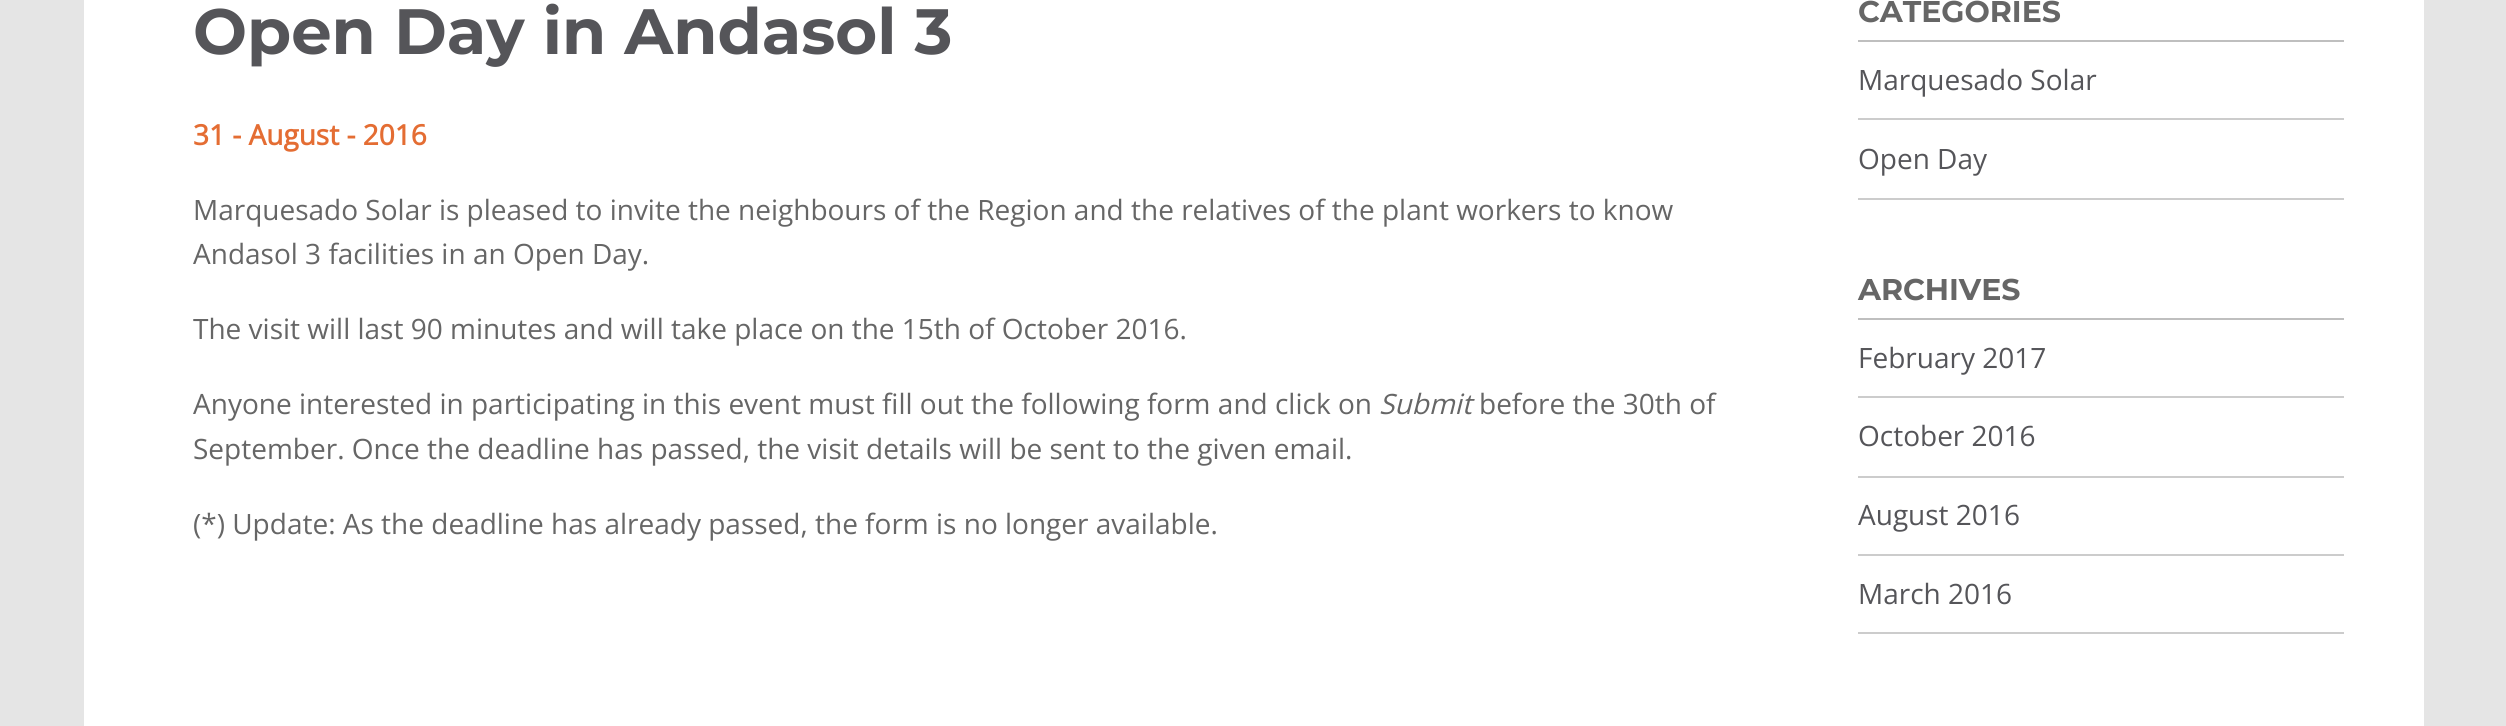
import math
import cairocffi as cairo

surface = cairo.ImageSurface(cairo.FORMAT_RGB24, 2506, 726)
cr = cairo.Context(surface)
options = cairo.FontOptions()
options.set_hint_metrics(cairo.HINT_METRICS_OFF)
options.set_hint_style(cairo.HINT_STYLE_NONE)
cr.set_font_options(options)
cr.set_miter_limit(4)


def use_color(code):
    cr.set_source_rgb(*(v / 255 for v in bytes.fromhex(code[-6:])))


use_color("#e5e5e5")
cr.paint()
use_color("#ffffff")
cr.rectangle(84, 0, 2340, 726)
cr.fill()
cr.select_font_face("Montserrat", cairo.FONT_SLANT_NORMAL, cairo.FONT_WEIGHT_BOLD)
cr.set_font_size(64)
use_color("#555559")
cr.move_to(193, 54)
cr.show_text("Open Day in Andasol 3")
cr.select_font_face("Open Sans", cairo.FONT_SLANT_NORMAL, cairo.FONT_WEIGHT_BOLD)
cr.set_font_size(28)
use_color("#e46d33")
cr.move_to(193, 145)
cr.show_text("31 - August - 2016")
cr.select_font_face("Open Sans")
use_color("#666666")
cr.move_to(193, 220)
cr.show_text("Marquesado Solar is pleased to invite the neighbours of the Region and the relatives of the plant workers to know")
cr.move_to(193, 264)
cr.show_text("Andasol 3 facilities in an Open Day.")
cr.move_to(193, 339)
cr.show_text("The visit will last 90 minutes and will take place on the 15th of October 2016.")
cr.move_to(193, 414)
cr.show_text("Anyone interested in participating in this event must fill out the following form and click on")
cr.select_font_face("Open Sans", cairo.FONT_SLANT_ITALIC)
cr.move_to(1379, 414)
cr.show_text("Submit")
cr.select_font_face("Open Sans")
cr.move_to(1479, 414)
cr.show_text("before the 30th of")
cr.move_to(193, 459)
cr.show_text("September. Once the deadline has passed, the visit details will be sent to the given email.")
cr.move_to(193, 534)
cr.show_text("(*) Update: As the deadline has already passed, the form is no longer available.")
use_color("#bfbfbf")
cr.rectangle(1858, 40, 486, 2)
cr.fill()
cr.select_font_face("Montserrat", cairo.FONT_SLANT_NORMAL, cairo.FONT_WEIGHT_BOLD)
cr.set_font_size(30)
use_color("#666666")
cr.move_to(1858, 22)
cr.show_text("CATEGORIES")
use_color("#cccccc")
cr.rectangle(1858, 118, 486, 2)
cr.fill()
cr.select_font_face("Open Sans")
cr.set_font_size(28)
use_color("#555559")
cr.move_to(1858, 90)
cr.show_text("Marquesado Solar")
use_color("#cccccc")
cr.rectangle(1858, 198, 486, 2)
cr.fill()
use_color("#555559")
cr.move_to(1858, 169)
cr.show_text("Open Day")
use_color("#bfbfbf")
cr.rectangle(1858, 318, 486, 2)
cr.fill()
cr.select_font_face("Montserrat", cairo.FONT_SLANT_NORMAL, cairo.FONT_WEIGHT_BOLD)
cr.set_font_size(30)
use_color("#666666")
cr.move_to(1858, 300)
cr.show_text("ARCHIVES")
use_color("#cccccc")
cr.rectangle(1858, 396, 486, 2)
cr.fill()
cr.select_font_face("Open Sans")
cr.set_font_size(28)
use_color("#555559")
cr.move_to(1858, 368)
cr.show_text("February 2017")
use_color("#cccccc")
cr.rectangle(1858, 476, 486, 2)
cr.fill()
use_color("#555559")
cr.move_to(1858, 446)
cr.show_text("October 2016")
use_color("#cccccc")
cr.rectangle(1858, 554, 486, 2)
cr.fill()
use_color("#555559")
cr.move_to(1858, 525)
cr.show_text("August 2016")
use_color("#cccccc")
cr.rectangle(1858, 632, 486, 2)
cr.fill()
use_color("#555559")
cr.move_to(1858, 604)
cr.show_text("March 2016")
surface.write_to_png("result.png")
